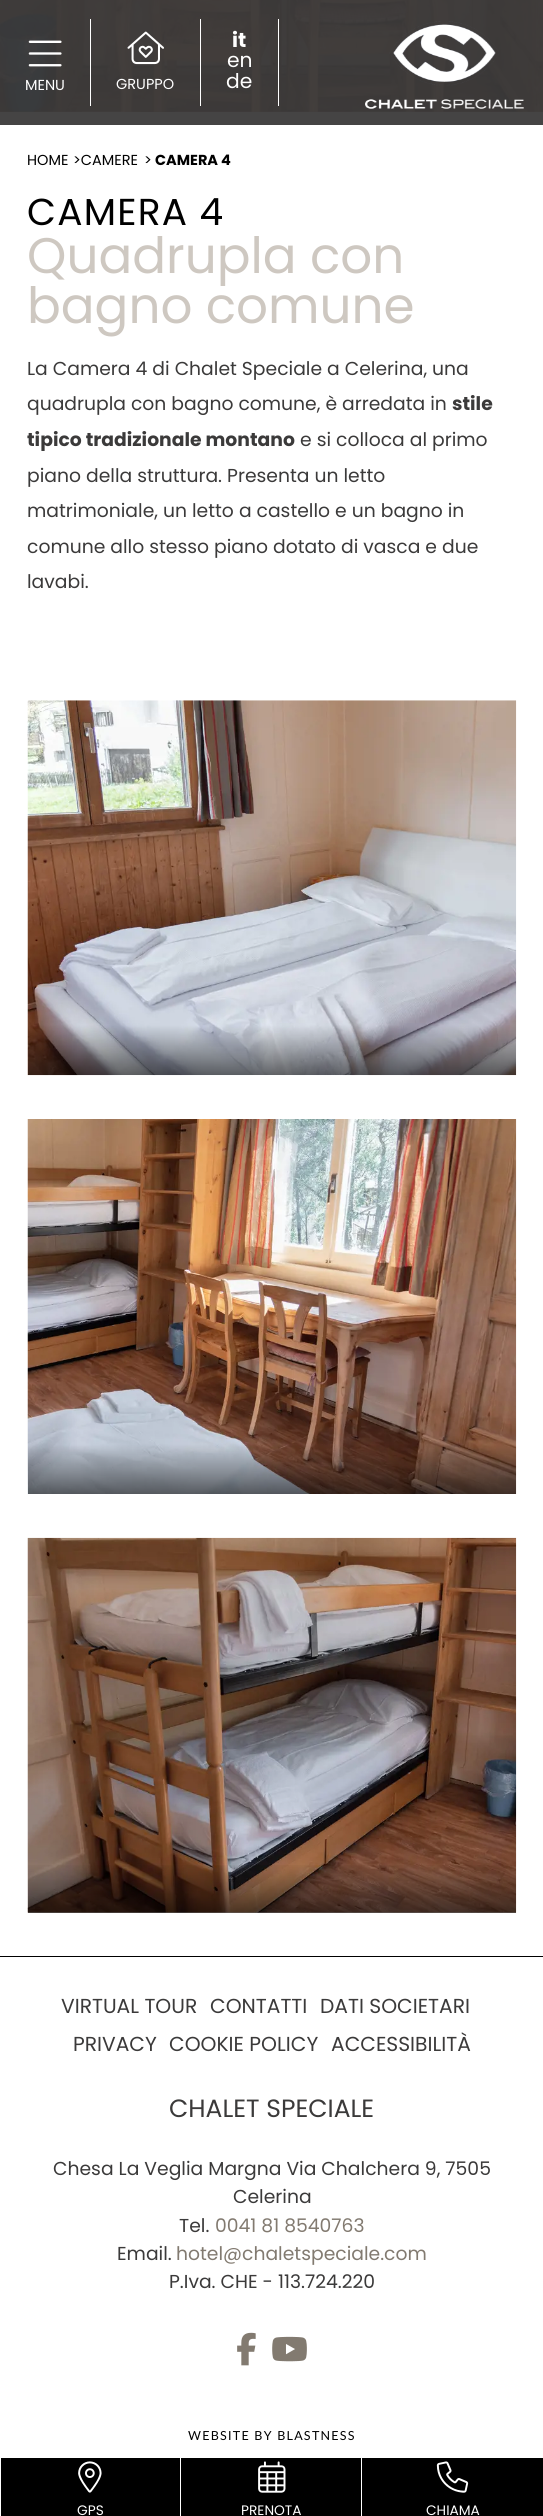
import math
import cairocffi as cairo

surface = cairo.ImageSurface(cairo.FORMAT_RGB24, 543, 2516)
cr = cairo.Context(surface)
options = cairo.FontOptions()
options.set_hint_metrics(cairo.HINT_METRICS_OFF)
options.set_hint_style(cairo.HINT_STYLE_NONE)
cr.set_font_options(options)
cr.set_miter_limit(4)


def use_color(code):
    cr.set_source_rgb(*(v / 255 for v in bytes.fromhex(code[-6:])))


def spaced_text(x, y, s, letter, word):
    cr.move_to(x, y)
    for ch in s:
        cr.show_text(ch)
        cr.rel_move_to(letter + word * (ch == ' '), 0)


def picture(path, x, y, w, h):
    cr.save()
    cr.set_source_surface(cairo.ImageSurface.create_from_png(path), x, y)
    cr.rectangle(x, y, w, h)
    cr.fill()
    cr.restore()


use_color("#ffffff")
cr.paint()
use_color("#454444")
cr.rectangle(0, 111, 543, 14)
cr.fill()
picture("img2.png", 0, 111, 543, 1)
picture("img1.png", 0, 0, 543, 112)
use_color("#ffffff")
cr.rectangle(90, 19, 1, 87)
cr.fill()
picture("img3.png", 28, 40, 34, 27)
cr.select_font_face("Poppins")
cr.set_font_size(14.5)
cr.move_to(25, 90)
cr.show_text("MENU")
cr.rectangle(200, 19, 1, 87)
cr.fill()
picture("img4.png", 127, 31, 37, 34)
cr.move_to(116, 89)
cr.show_text("GRUPPO")
cr.rectangle(278, 19, 1, 87)
cr.fill()
cr.select_font_face("Poppins", cairo.FONT_SLANT_NORMAL, cairo.FONT_WEIGHT_BOLD)
cr.set_font_size(20.25)
cr.move_to(232, 47)
cr.show_text("it")
cr.select_font_face("Poppins")
cr.move_to(227, 67)
cr.show_text("en")
cr.move_to(226, 88)
cr.show_text("de")
picture("img5.png", 365, 21, 159, 88)
cr.set_font_size(14.5)
use_color("#000000")
cr.move_to(27, 165)
cr.show_text("HOME")
cr.move_to(73, 165)
cr.show_text(">CAMERE")
cr.move_to(144, 165)
cr.show_text(">")
cr.select_font_face("Poppins", cairo.FONT_SLANT_NORMAL, cairo.FONT_WEIGHT_BOLD)
cr.move_to(155, 165)
cr.show_text("CAMERA 4")
cr.select_font_face("Poppins")
cr.set_font_size(37.5)
spaced_text(27, 225, "CAMERA 4", 1.25, 0)
cr.set_font_size(50)
use_color("#cec8c1")
cr.move_to(27, 273)
cr.show_text("Quadrupla con")
cr.move_to(27, 323)
cr.show_text("bagno comune")
cr.set_font_size(18.75)
use_color("#3b3a3a")
cr.move_to(27, 375)
cr.show_text("La Camera 4 di Chalet Speciale a Celerina, una")
cr.move_to(27, 410)
cr.show_text("quadrupla con bagno comune, è arredata in")
cr.select_font_face("Poppins", cairo.FONT_SLANT_NORMAL, cairo.FONT_WEIGHT_BOLD)
cr.move_to(452, 410)
cr.show_text("stile")
cr.move_to(27, 446)
cr.show_text("tipico tradizionale montano")
cr.select_font_face("Poppins")
cr.move_to(300, 446)
cr.show_text("e si colloca al primo")
cr.move_to(27, 482)
cr.show_text("piano della struttura. Presenta un letto")
cr.move_to(27, 517)
cr.show_text("matrimoniale, un letto a castello e un bagno in")
cr.move_to(27, 553)
cr.show_text("comune allo stesso piano dotato di vasca e due")
cr.move_to(27, 588)
cr.show_text("lavabi.")
picture("img6.png", 27, 700, 490, 376)
picture("img7.png", 27, 1119, 490, 375)
picture("img8.png", 27, 1537, 490, 376)
gradient = cairo.LinearGradient(272, 1913, 272, 1863)
gradient.add_color_stop_rgba(0, 0, 0, 0, 0.57)
gradient.add_color_stop_rgba(1, 0, 0, 0, 0)
cr.set_source(gradient)
cr.rectangle(28, 1865, 488, 48)
cr.fill()
use_color("#000000")
cr.rectangle(0, 1956, 543, 1)
cr.fill()
cr.set_font_size(20.25)
use_color("#3b3a3a")
cr.move_to(61, 2013)
cr.show_text("VIRTUAL TOUR")
cr.move_to(210, 2013)
cr.show_text("CONTATTI")
cr.move_to(320, 2013)
cr.show_text("DATI SOCIETARI")
cr.move_to(73, 2051)
cr.show_text("PRIVACY")
cr.move_to(169, 2051)
cr.show_text("COOKIE POLICY")
cr.move_to(331, 2051)
cr.show_text("ACCESSIBILITÀ")
cr.set_font_size(25)
cr.move_to(169, 2117)
cr.show_text("CHALET SPECIALE")
cr.set_font_size(18.75)
cr.move_to(53, 2175)
cr.show_text("Chesa La Veglia Margna Via Chalchera 9, 7505")
cr.move_to(233, 2203)
cr.show_text("Celerina")
cr.move_to(179, 2232)
cr.show_text("Tel.")
use_color("#827a70")
cr.move_to(215, 2232)
cr.show_text("0041 81 8540763")
use_color("#3b3a3a")
cr.move_to(117, 2260)
cr.show_text("Email.")
use_color("#827a70")
cr.move_to(176, 2260)
cr.show_text("hotel@chaletspeciale.com")
use_color("#3b3a3a")
cr.move_to(169, 2288)
cr.show_text("P.Iva. CHE - 113.724.220")
picture("img9.png", 237, 2332, 19, 34)
picture("img10.png", 272, 2336, 35, 26)
cr.select_font_face("Lato")
cr.set_font_size(12.5)
use_color("#000000")
spaced_text(188, 2440, "WEBSITE BY BLASTNESS", 1.25, 0)
cr.rectangle(1, 2458, 542, 58)
cr.fill()
use_color("#ffffff")
cr.rectangle(180, 2458, 1, 58)
cr.fill()
picture("img11.png", 78, 2461, 24, 32)
cr.select_font_face("Poppins")
cr.set_font_size(13.75)
cr.move_to(77, 2515)
cr.show_text("GPS")
cr.rectangle(361, 2458, 1, 58)
cr.fill()
picture("img12.png", 258, 2461, 28, 32)
cr.move_to(241, 2515)
cr.show_text("PRENOTA")
picture("img13.png", 436, 2461, 33, 32)
cr.move_to(426, 2515)
cr.show_text("CHIAMA")
surface.write_to_png("result.png")
